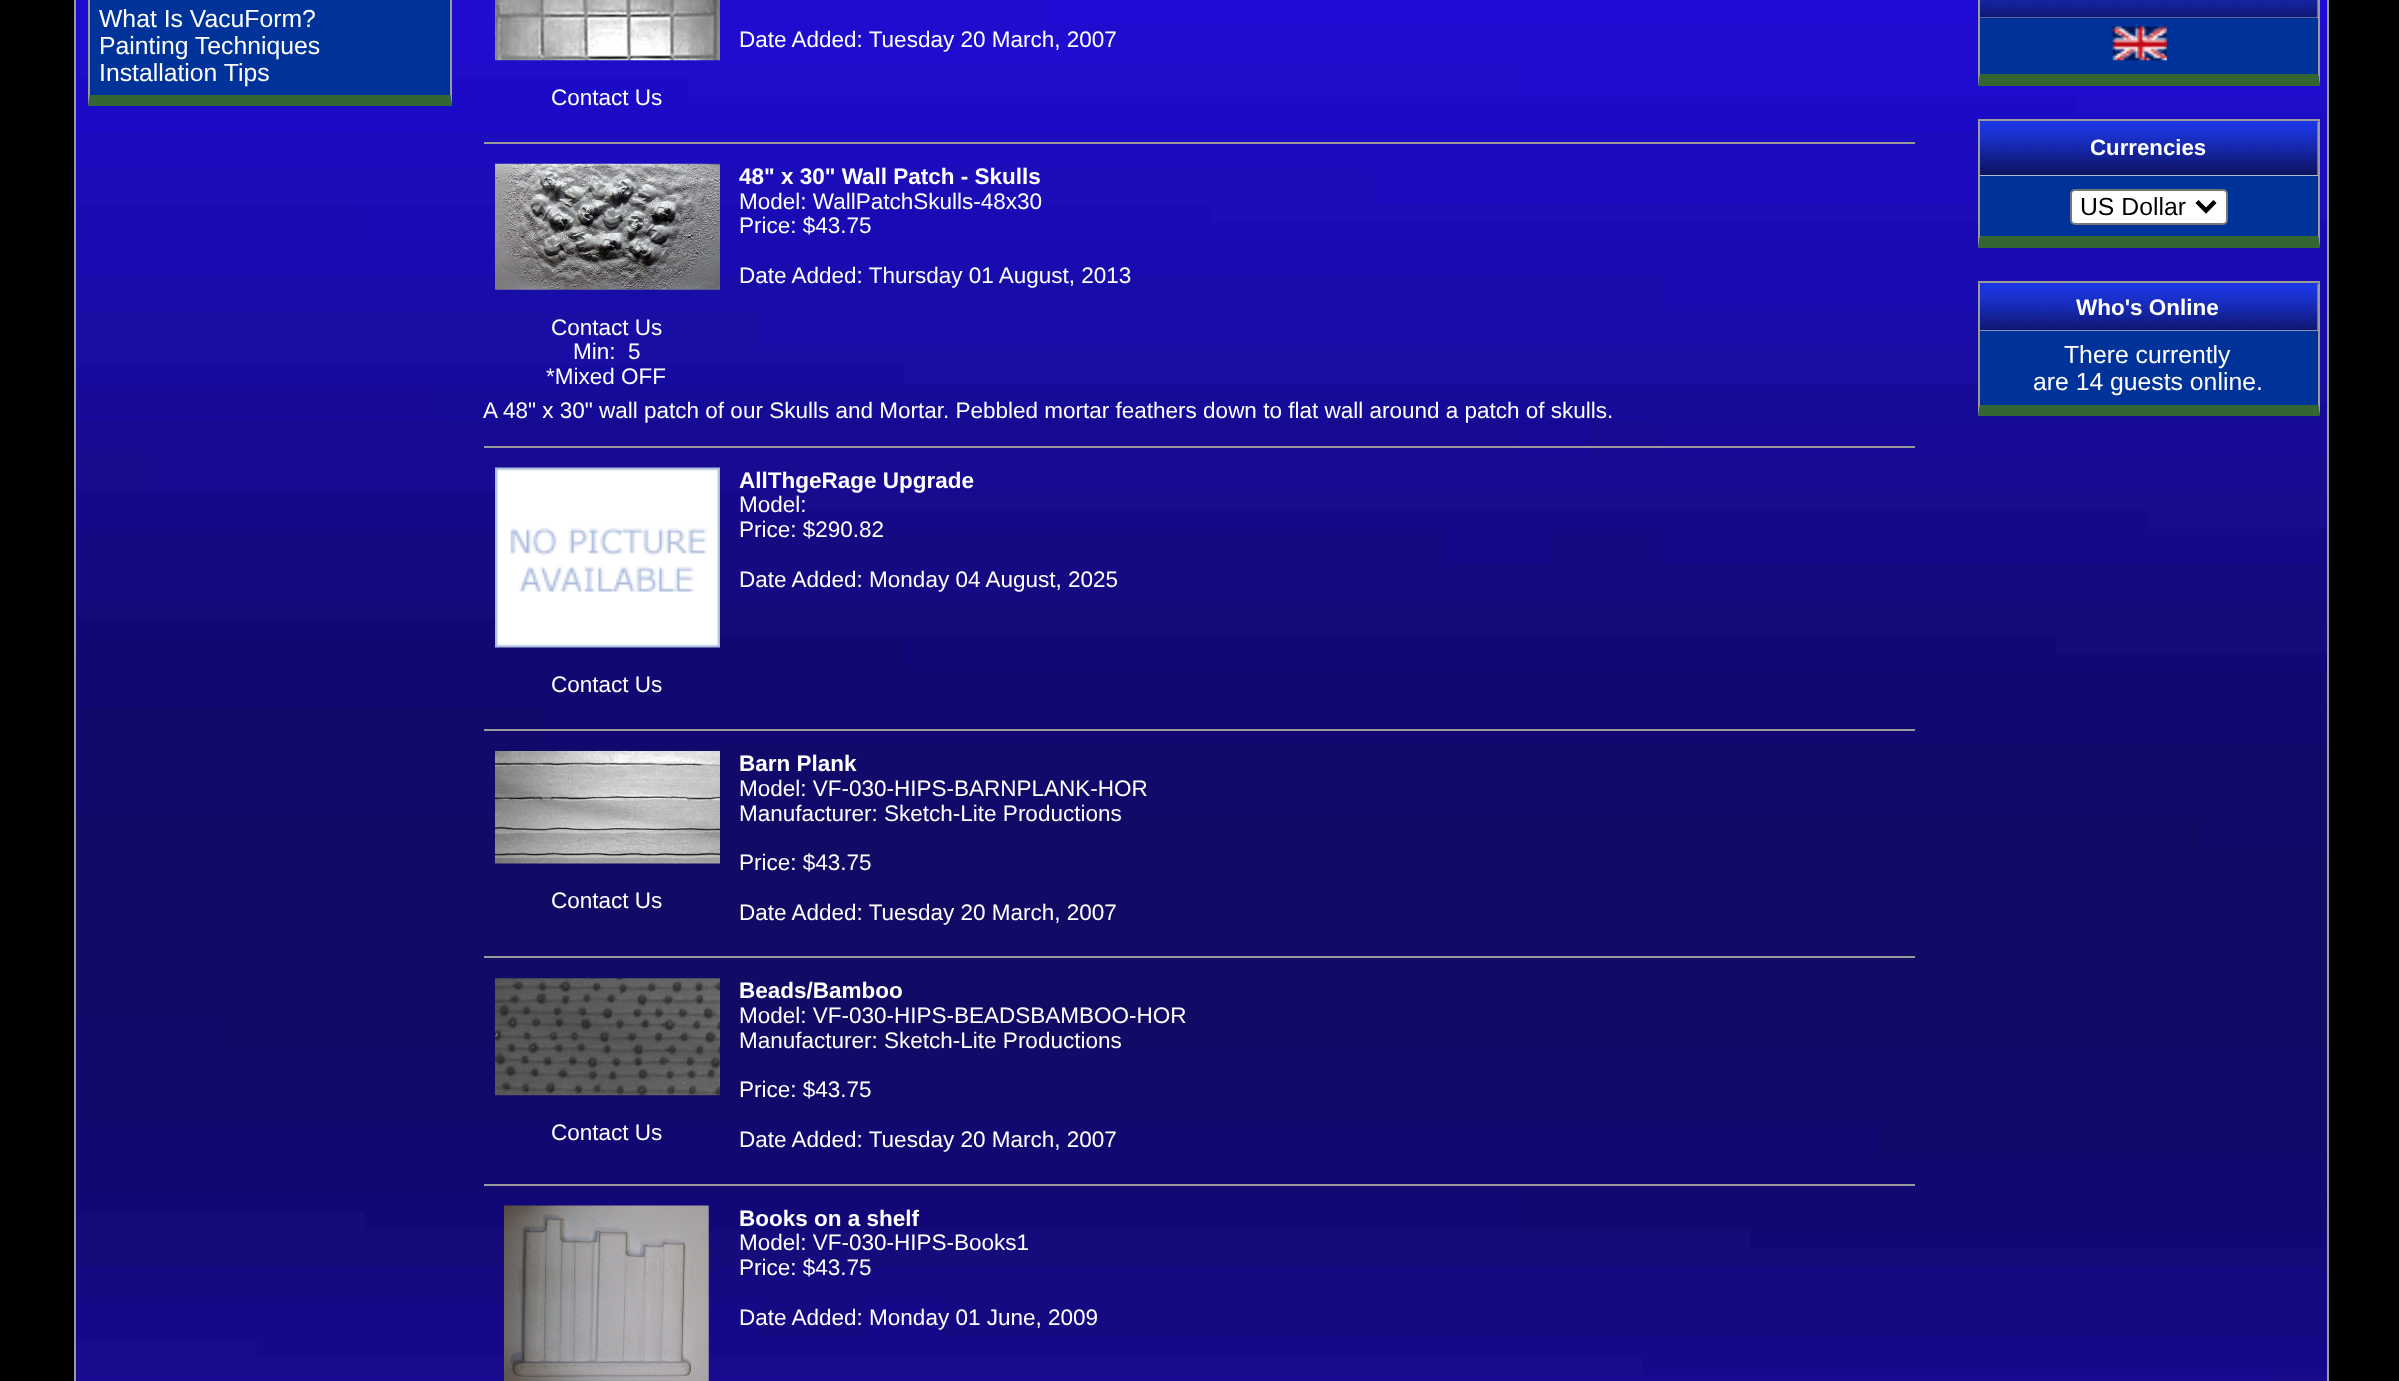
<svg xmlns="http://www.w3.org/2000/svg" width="2399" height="1381">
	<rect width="100%" height="100%" fill="#000000" />
	<image x="76" y="0" width="2251" height="1381" href="assets/img1.png" />
	<rect x="75" y="-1" width="2253" height="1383" fill="none" stroke="#9A9A9A" stroke-width="2" />
	<path d="M452-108V106L450 94V-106Z" fill="#9A9A9A" />
	<path d="M452 106H88L90 94H450Z" fill="#336633" />
	<path d="M88 106V-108L90-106V94Z" fill="#9A9A9A" />
	<rect x="90" y="0" width="360" height="95" fill="#003399" />
	<g font-family="Liberation Sans" font-size="24.75" fill="#FFFFFF">
		<text x="99" y="27">What Is VacuForm?</text>
		<text x="99" y="54">Painting Techniques</text>
		<text x="99" y="81">Installation Tips</text>
	</g>
	<text x="739" y="47" font-family="Liberation Sans" font-size="22.5" fill="#FFFFFF">Date Added: Tuesday 20 March, 2007</text>
	<image x="495" y="0" width="225" height="61" href="assets/img2.png" />
	<text x="551" y="105" font-family="Liberation Sans" font-size="22.5" fill="#FFFFFF">Contact Us</text>
	<rect x="484" y="142" width="1431" height="2" fill="#9A9A9A" />
	<text x="739" y="184" font-family="Liberation Sans" font-size="22.5" font-weight="700" fill="#FFFFFF">48" x 30" Wall Patch - Skulls</text>
	<g font-family="Liberation Sans" font-size="22.5" fill="#FFFFFF">
		<text x="739" y="209">Model: WallPatchSkulls-48x30</text>
		<text x="739" y="233">Price: $43.75</text>
		<text x="739" y="283">Date Added: Thursday 01 August, 2013</text>
	</g>
	<image x="495" y="163" width="225" height="127" href="assets/img3.png" />
	<g font-family="Liberation Sans" font-size="22.5" fill="#FFFFFF">
		<text x="551" y="335">Contact Us</text>
		<text x="573" y="359" xml:space="preserve">Min:  5</text>
		<text x="546" y="384">*Mixed OFF</text>
		<text x="483" y="418">A 48" x 30" wall patch of our Skulls and Mortar. Pebbled mortar feathers down to flat wall around a patch of skulls.</text>
	</g>
	<rect x="484" y="446" width="1431" height="2" fill="#9A9A9A" />
	<text x="739" y="488" font-family="Liberation Sans" font-size="22.5" font-weight="700" fill="#FFFFFF">AllThgeRage Upgrade</text>
	<g font-family="Liberation Sans" font-size="22.5" fill="#FFFFFF">
		<text x="739" y="512">Model:</text>
		<text x="739" y="537">Price: $290.82</text>
		<text x="739" y="587">Date Added: Monday 04 August, 2025</text>
	</g>
	<image x="495" y="467" width="225" height="181" href="assets/img4.png" />
	<text x="551" y="692" font-family="Liberation Sans" font-size="22.5" fill="#FFFFFF">Contact Us</text>
	<rect x="484" y="729" width="1431" height="2" fill="#9A9A9A" />
	<image x="495" y="751" width="225" height="113" href="assets/img5.png" />
	<text x="551" y="908" font-family="Liberation Sans" font-size="22.5" fill="#FFFFFF">Contact Us</text>
	<text x="739" y="771" font-family="Liberation Sans" font-size="22.5" font-weight="700" fill="#FFFFFF">Barn Plank</text>
	<g font-family="Liberation Sans" font-size="22.5" fill="#FFFFFF">
		<text x="739" y="796">Model: VF-030-HIPS-BARNPLANK-HOR</text>
		<text x="739" y="821">Manufacturer: Sketch-Lite Productions</text>
		<text x="739" y="870">Price: $43.75</text>
		<text x="739" y="920">Date Added: Tuesday 20 March, 2007</text>
	</g>
	<rect x="484" y="956" width="1431" height="2" fill="#9A9A9A" />
	<image x="495" y="978" width="225" height="118" href="assets/img6.png" />
	<text x="551" y="1140" font-family="Liberation Sans" font-size="22.5" fill="#FFFFFF">Contact Us</text>
	<text x="739" y="998" font-family="Liberation Sans" font-size="22.5" font-weight="700" fill="#FFFFFF">Beads/Bamboo</text>
	<g font-family="Liberation Sans" font-size="22.5" fill="#FFFFFF">
		<text x="739" y="1023">Model: VF-030-HIPS-BEADSBAMBOO-HOR</text>
		<text x="739" y="1048">Manufacturer: Sketch-Lite Productions</text>
		<text x="739" y="1097">Price: $43.75</text>
		<text x="739" y="1147">Date Added: Tuesday 20 March, 2007</text>
	</g>
	<rect x="484" y="1184" width="1431" height="2" fill="#9A9A9A" />
	<image x="504" y="1205" width="205" height="176" href="assets/img7.png" />
	<text x="739" y="1226" font-family="Liberation Sans" font-size="22.5" font-weight="700" fill="#FFFFFF">Books on a shelf</text>
	<g font-family="Liberation Sans" font-size="22.5" fill="#FFFFFF">
		<text x="739" y="1250">Model: VF-030-HIPS-Books1</text>
		<text x="739" y="1275">Price: $43.75</text>
		<text x="739" y="1325">Date Added: Monday 01 June, 2009</text>
	</g>
	<path d="M2320-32V86L2318 74V-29Z" fill="#9A9A9A" />
	<path d="M2320 86H1978L1980 74H2318Z" fill="#336633" />
	<path d="M1978 86V-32L1980-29V74Z" fill="#9A9A9A" />
	<rect x="1980" y="0" width="338" height="18" fill="#ABBBD3" />
	<image x="1980" y="0" width="338" height="18" href="assets/img8.png" />
	<rect x="1980" y="18" width="338" height="56" fill="#003399" />
	<image x="2112" y="26" width="55" height="35" href="assets/img9.png" />
	<rect x="1978" y="119" width="342" height="2" fill="#9A9A9A" />
	<path d="M2320 119V248L2318 236V122Z" fill="#9A9A9A" />
	<path d="M2320 248H1978L1980 236H2318Z" fill="#336633" />
	<path d="M1978 248V119L1980 122V236Z" fill="#9A9A9A" />
	<rect x="1980" y="122" width="338" height="54" fill="#ABBBD3" />
	<image x="1980" y="121" width="338" height="54" href="assets/img10.png" />
	<text x="2090" y="155" font-family="Liberation Sans" font-size="22.25" font-weight="700" fill="#FFFFFF">Currencies</text>
	<rect x="1980" y="176" width="338" height="60" fill="#003399" />
	<rect x="2071" y="190" width="156" height="34" rx="4" fill="#FFFFFF" stroke="#767676" stroke-width="2" />
	<path d="M2197 201.5L2206 210.5L2215 201.5" fill="none" stroke="#000000" stroke-width="4.5" />
	<text x="2080" y="215" font-family="Liberation Sans" font-size="24.75" fill="#000000">US Dollar</text>
	<rect x="1978" y="281" width="342" height="2" fill="#9A9A9A" />
	<path d="M2320 281V416L2318 405V284Z" fill="#9A9A9A" />
	<path d="M2320 416H1978L1980 405H2318Z" fill="#336633" />
	<path d="M1978 416V281L1980 284V405Z" fill="#9A9A9A" />
	<rect x="1980" y="284" width="338" height="47" fill="#ABBBD3" />
	<image x="1980" y="283" width="338" height="48" href="assets/img11.png" />
	<text x="2076" y="315" font-family="Liberation Sans" font-size="22.5" font-weight="700" fill="#FFFFFF">Who's Online</text>
	<rect x="1980" y="331" width="338" height="74" fill="#003399" />
	<g font-family="Liberation Sans" font-size="24.75" fill="#FFFFFF">
		<text x="2064" y="363">There currently</text>
		<text x="2033" y="390">are 14 guests online.</text>
	</g>
</svg>
